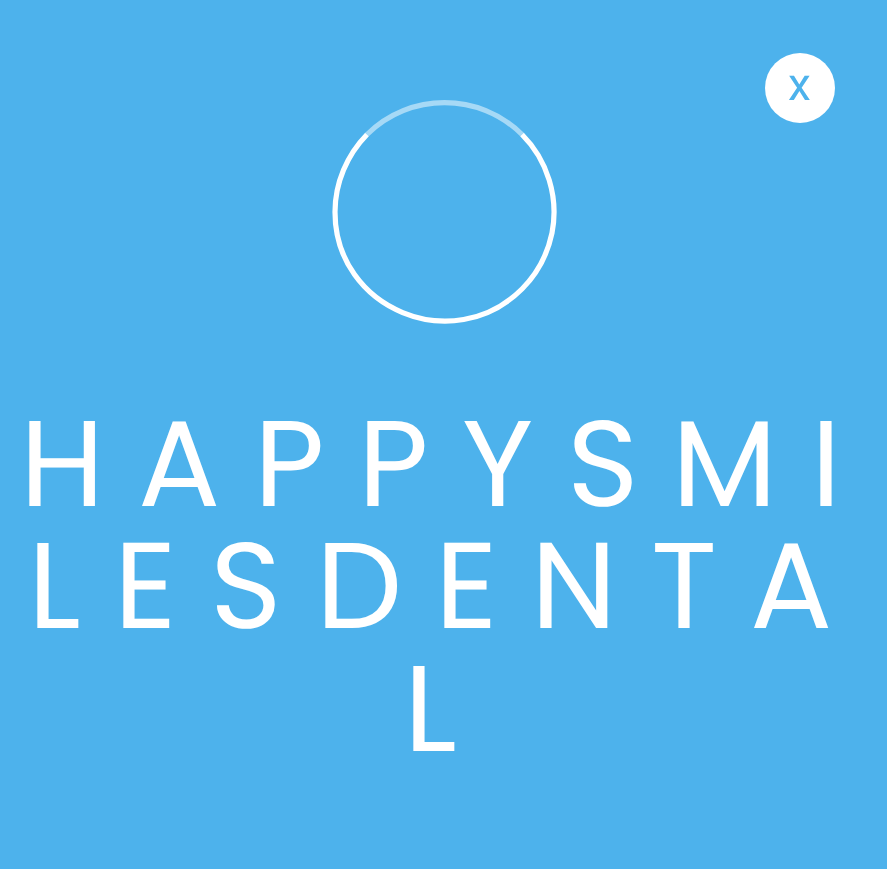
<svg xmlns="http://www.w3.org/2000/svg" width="887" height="869">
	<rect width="100%" height="100%" fill="#4DB2EC" />
	<circle cx="800" cy="88" r="35" fill="#FFFFFF" />
	<text x="788" y="100" font-family="Roboto" font-size="46" fill="#4DB2EC">x</text>
	<path d="M367 134.5C409.5 92 479.5 92 522 134.5" fill="none" stroke="#A6D9F6" stroke-width="5.2" />
	<path d="M522 134.5C547.5 160 559 197.5 552 233C547.5 254.5 537 274 522 289C453 357.5 335 309 335 212C335 183 347 155 367 134.5" fill="none" stroke="#FFFFFF" stroke-width="5.2" />
	<g font-family="Poppins" font-size="122" letter-spacing="26" fill="#FFFFFF">
		<text x="20" y="506">H</text>
		<text x="138" y="506">A</text>
		<text x="254" y="506">P</text>
		<text x="358" y="506">P</text>
		<text x="462" y="506">Y</text>
		<text x="567" y="506">S</text>
		<text x="672" y="506">M</text>
		<text x="811" y="506">I</text>
		<text x="28" y="628">L</text>
		<text x="114" y="628">E</text>
		<text x="210" y="628">S</text>
		<text x="316" y="628">D</text>
		<text x="435" y="628">E</text>
		<text x="531" y="628">N</text>
		<text x="651" y="628">T</text>
		<text x="750" y="628">A</text>
		<text x="404" y="751">L</text>
	</g>
</svg>
